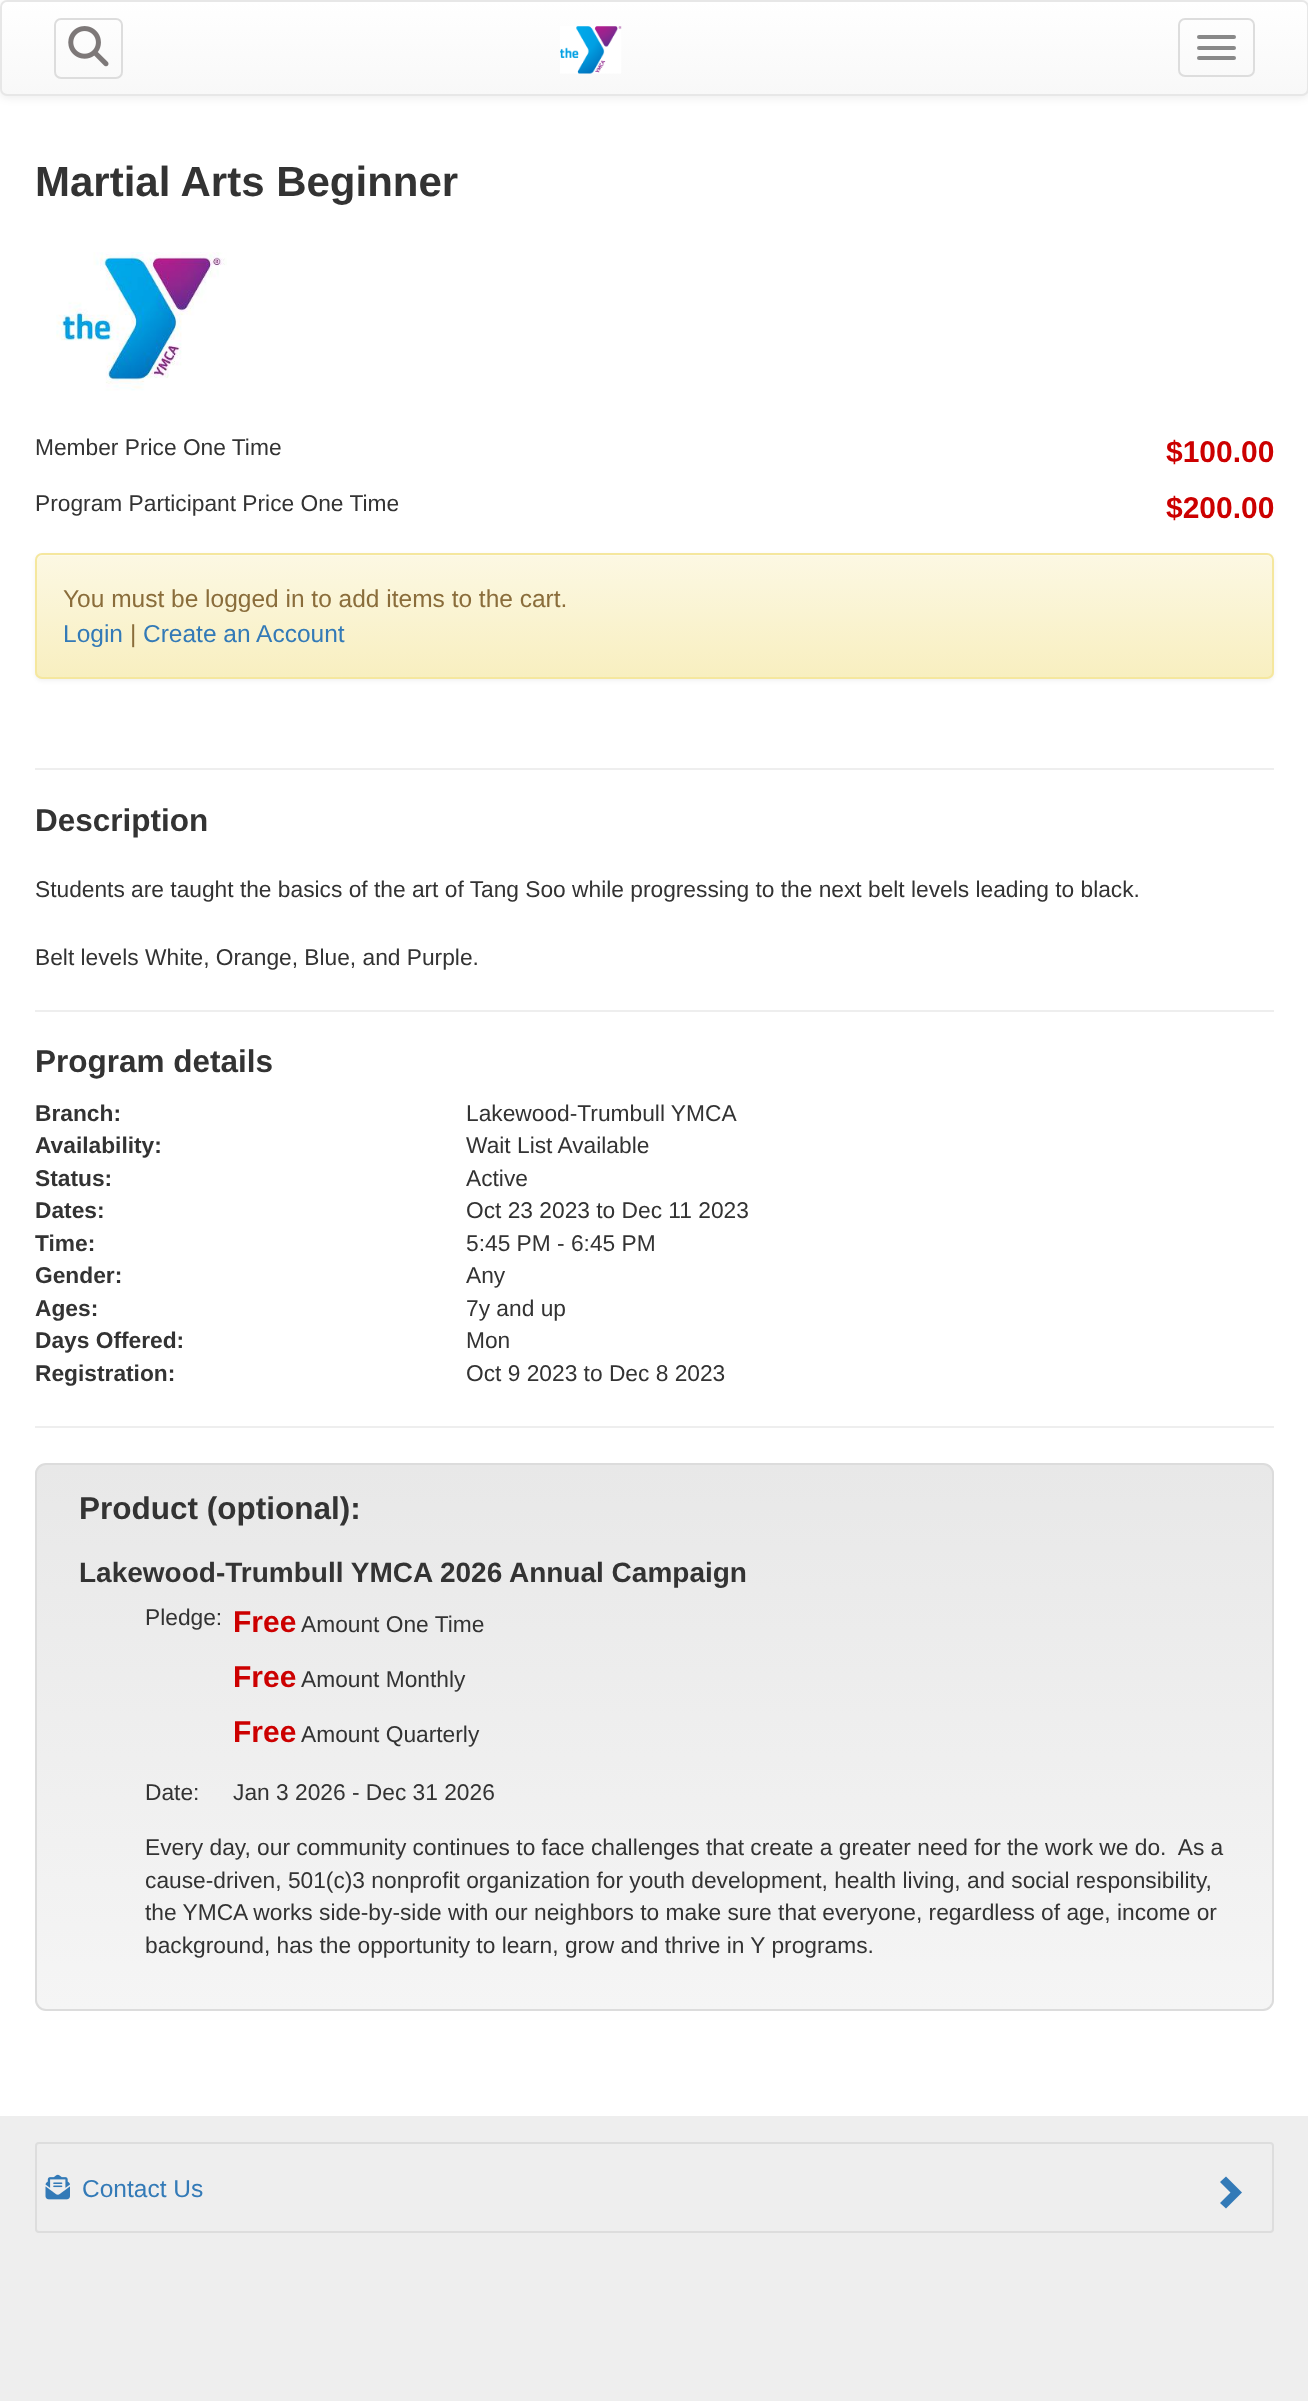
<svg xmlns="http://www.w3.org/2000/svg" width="1308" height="2401">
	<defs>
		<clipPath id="clip1"><rect x="0" y="0" width="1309" height="96" rx="7" /></clipPath>
		<linearGradient id="g1" gradientUnits="userSpaceOnUse" x1="655" y1="1.7" x2="655" y2="95"><stop offset="0" stop-color="#FFFFFF" /><stop offset="1" stop-color="#F8F8F8" /></linearGradient>
		<clipPath id="clip2"><rect x="35" y="553" width="1239" height="126" rx="7" /></clipPath>
		<linearGradient id="g2" gradientUnits="userSpaceOnUse" x1="655" y1="555" x2="655" y2="677"><stop offset="0" stop-color="#FCF8E3" /><stop offset="1" stop-color="#F8EFC0" /></linearGradient>
		<clipPath id="clip3"><rect x="35" y="1463" width="1239" height="548" rx="11" /></clipPath>
		<linearGradient id="g3" gradientUnits="userSpaceOnUse" x1="655" y1="1465" x2="655" y2="2009"><stop offset="0" stop-color="#E8E8E8" /><stop offset="1" stop-color="#F5F5F5" /></linearGradient>
	</defs>
	<rect width="100%" height="100%" fill="#FFFFFF" />
	<rect x="0" y="2" width="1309" height="96" rx="7" fill="#000000" fill-opacity="0.07" filter="blur(4.5px)" />
	<g clip-path="url(#clip1)">
		<rect x="0" y="2" width="1308" height="93" fill="url(#g1)" />
	</g>
	<rect x="1" y="1" width="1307" height="94" rx="6" fill="none" stroke="#E7E7E7" stroke-width="2" />
	<rect x="55" y="19" width="67" height="59" rx="6" fill="none" stroke="#DDDDDD" stroke-width="2" />
	<image x="68" y="26" width="41" height="41" href="assets/img1.png" />
	<image x="560" y="26" width="62" height="48" href="assets/img2.png" />
	<rect x="1179" y="19" width="75" height="57" rx="6" fill="none" stroke="#DDDDDD" stroke-width="2" />
	<rect x="1197" y="35" width="39" height="4" rx="2" fill="#888888" />
	<rect x="1197" y="46" width="39" height="4" rx="2" fill="#888888" />
	<rect x="1197" y="56" width="39" height="4" rx="2" fill="#888888" />
	<text x="35" y="196" font-family="Liberation Sans" font-size="42" font-weight="700" fill="#333333">Martial Arts Beginner</text>
	<image x="56" y="252" width="171" height="139" href="assets/img3.png" />
	<text x="35" y="455" font-family="Liberation Sans" font-size="22.75" fill="#333333">Member Price One Time</text>
	<text x="1166" y="462" font-family="Liberation Sans" font-size="30" font-weight="700" fill="#CC0000">$100.00</text>
	<text x="35" y="511" font-family="Liberation Sans" font-size="22.75" fill="#333333">Program Participant Price One Time</text>
	<text x="1166" y="518" font-family="Liberation Sans" font-size="30" font-weight="700" fill="#CC0000">$200.00</text>
	<rect x="35" y="555" width="1239" height="126" rx="7" fill="#000000" fill-opacity="0.05" filter="blur(2px)" />
	<g clip-path="url(#clip2)">
		<rect x="35" y="555" width="1239" height="122" fill="url(#g2)" />
	</g>
	<path d="M42 556H1267C1270 556 1272 559 1272 562V560C1272 557 1270 555 1267 555H42C39 555 37 557 37 560V562C37 559 39 556 42 556Z" fill="#FDFAEA" />
	<rect x="36" y="554" width="1237" height="124" rx="6" fill="none" stroke="#F5E79E" stroke-width="2" />
	<text x="63" y="607" font-family="Liberation Sans" font-size="24.5" fill="#8A6D3B">You must be logged in to add items to the cart.</text>
	<text x="63" y="642" font-family="Liberation Sans" font-size="24.5" fill="#337AB7">Login</text>
	<text x="130" y="642" font-family="Liberation Sans" font-size="24.5" fill="#8A6D3B">|</text>
	<text x="143" y="642" font-family="Liberation Sans" font-size="24.5" fill="#337AB7">Create an Account</text>
	<rect x="35" y="768" width="1239" height="2" fill="#EEEEEE" />
	<text x="35" y="831" font-family="Liberation Sans" font-size="31.5" font-weight="700" fill="#333333">Description</text>
	<g font-family="Liberation Sans" font-size="22.75" fill="#333333">
		<text x="35" y="897">Students are taught the basics of the art of Tang Soo while progressing to the next belt levels leading to black.</text>
		<text x="35" y="965">Belt levels White, Orange, Blue, and Purple.</text>
	</g>
	<rect x="35" y="1010" width="1239" height="2" fill="#EEEEEE" />
	<text x="35" y="1072" font-family="Liberation Sans" font-size="31.5" font-weight="700" fill="#333333">Program details</text>
	<text x="35" y="1121" font-family="Liberation Sans" font-size="22.75" font-weight="700" fill="#333333">Branch:</text>
	<text x="466" y="1121" font-family="Liberation Sans" font-size="22.75" fill="#333333">Lakewood-Trumbull YMCA</text>
	<text x="35" y="1153" font-family="Liberation Sans" font-size="22.75" font-weight="700" fill="#333333">Availability:</text>
	<text x="466" y="1153" font-family="Liberation Sans" font-size="22.75" fill="#333333">Wait List Available</text>
	<text x="35" y="1186" font-family="Liberation Sans" font-size="22.75" font-weight="700" fill="#333333">Status:</text>
	<text x="466" y="1186" font-family="Liberation Sans" font-size="22.75" fill="#333333">Active</text>
	<text x="35" y="1218" font-family="Liberation Sans" font-size="22.75" font-weight="700" fill="#333333">Dates:</text>
	<text x="466" y="1218" font-family="Liberation Sans" font-size="22.75" fill="#333333">Oct 23 2023 to Dec 11 2023</text>
	<text x="35" y="1251" font-family="Liberation Sans" font-size="22.75" font-weight="700" fill="#333333">Time:</text>
	<text x="466" y="1251" font-family="Liberation Sans" font-size="22.75" fill="#333333">5:45 PM - 6:45 PM</text>
	<text x="35" y="1283" font-family="Liberation Sans" font-size="22.75" font-weight="700" fill="#333333">Gender:</text>
	<text x="466" y="1283" font-family="Liberation Sans" font-size="22.75" fill="#333333">Any</text>
	<text x="35" y="1316" font-family="Liberation Sans" font-size="22.75" font-weight="700" fill="#333333">Ages:</text>
	<text x="466" y="1316" font-family="Liberation Sans" font-size="22.75" fill="#333333">7y and up</text>
	<text x="35" y="1348" font-family="Liberation Sans" font-size="22.75" font-weight="700" fill="#333333">Days Offered:</text>
	<text x="466" y="1348" font-family="Liberation Sans" font-size="22.75" fill="#333333">Mon</text>
	<text x="35" y="1381" font-family="Liberation Sans" font-size="22.75" font-weight="700" fill="#333333">Registration:</text>
	<text x="466" y="1381" font-family="Liberation Sans" font-size="22.75" fill="#333333">Oct 9 2023 to Dec 8 2023</text>
	<rect x="35" y="1426" width="1239" height="2" fill="#EEEEEE" />
	<g clip-path="url(#clip3)">
		<rect x="35" y="1465" width="1239" height="544" fill="url(#g3)" />
	</g>
	<rect x="36" y="1464" width="1237" height="546" rx="10" fill="none" stroke="#DCDCDC" stroke-width="2" />
	<text x="79" y="1519" font-family="Liberation Sans" font-size="31.5" font-weight="700" fill="#333333">Product (optional):</text>
	<text x="79" y="1582" font-family="Liberation Sans" font-size="28" font-weight="700" fill="#333333">Lakewood-Trumbull YMCA 2026 Annual Campaign</text>
	<text x="145" y="1625" font-family="Liberation Sans" font-size="22.75" fill="#333333">Pledge:</text>
	<text x="233" y="1632" font-family="Liberation Sans" font-size="30" font-weight="700" fill="#CC0000">Free</text>
	<text x="301" y="1632" font-family="Liberation Sans" font-size="22.75" fill="#333333">Amount One Time</text>
	<text x="233" y="1687" font-family="Liberation Sans" font-size="30" font-weight="700" fill="#CC0000">Free</text>
	<text x="301" y="1687" font-family="Liberation Sans" font-size="22.75" fill="#333333">Amount Monthly</text>
	<text x="233" y="1742" font-family="Liberation Sans" font-size="30" font-weight="700" fill="#CC0000">Free</text>
	<g font-family="Liberation Sans" font-size="22.75" fill="#333333">
		<text x="301" y="1742">Amount Quarterly</text>
		<text x="145" y="1800">Date:</text>
		<text x="233" y="1800">Jan 3 2026 - Dec 31 2026</text>
		<text x="145" y="1855" xml:space="preserve">Every day, our community continues to face challenges that create a greater need for the work we do.  As a</text>
		<text x="145" y="1888">cause-driven, 501(c)3 nonprofit organization for youth development, health living, and social responsibility,</text>
		<text x="145" y="1920">the YMCA works side-by-side with our neighbors to make sure that everyone, regardless of age, income or</text>
		<text x="145" y="1953">background, has the opportunity to learn, grow and thrive in Y programs.</text>
	</g>
	<rect x="0" y="2116" width="1308" height="285" fill="#EEEEEE" />
	<rect x="36" y="2143" width="1237" height="89" rx="3" fill="none" stroke="#DDDDDD" stroke-width="2" />
	<image x="45" y="2174" width="25" height="26" href="assets/img4.png" />
	<text x="82" y="2197" font-family="Liberation Sans" font-size="24.5" fill="#337AB7">Contact Us</text>
	<path d="M1242 2192.5L1226 2208.5L1220 2203L1230.5 2192.5L1220 2182L1226 2176.5Z" fill="#337AB7" />
</svg>
